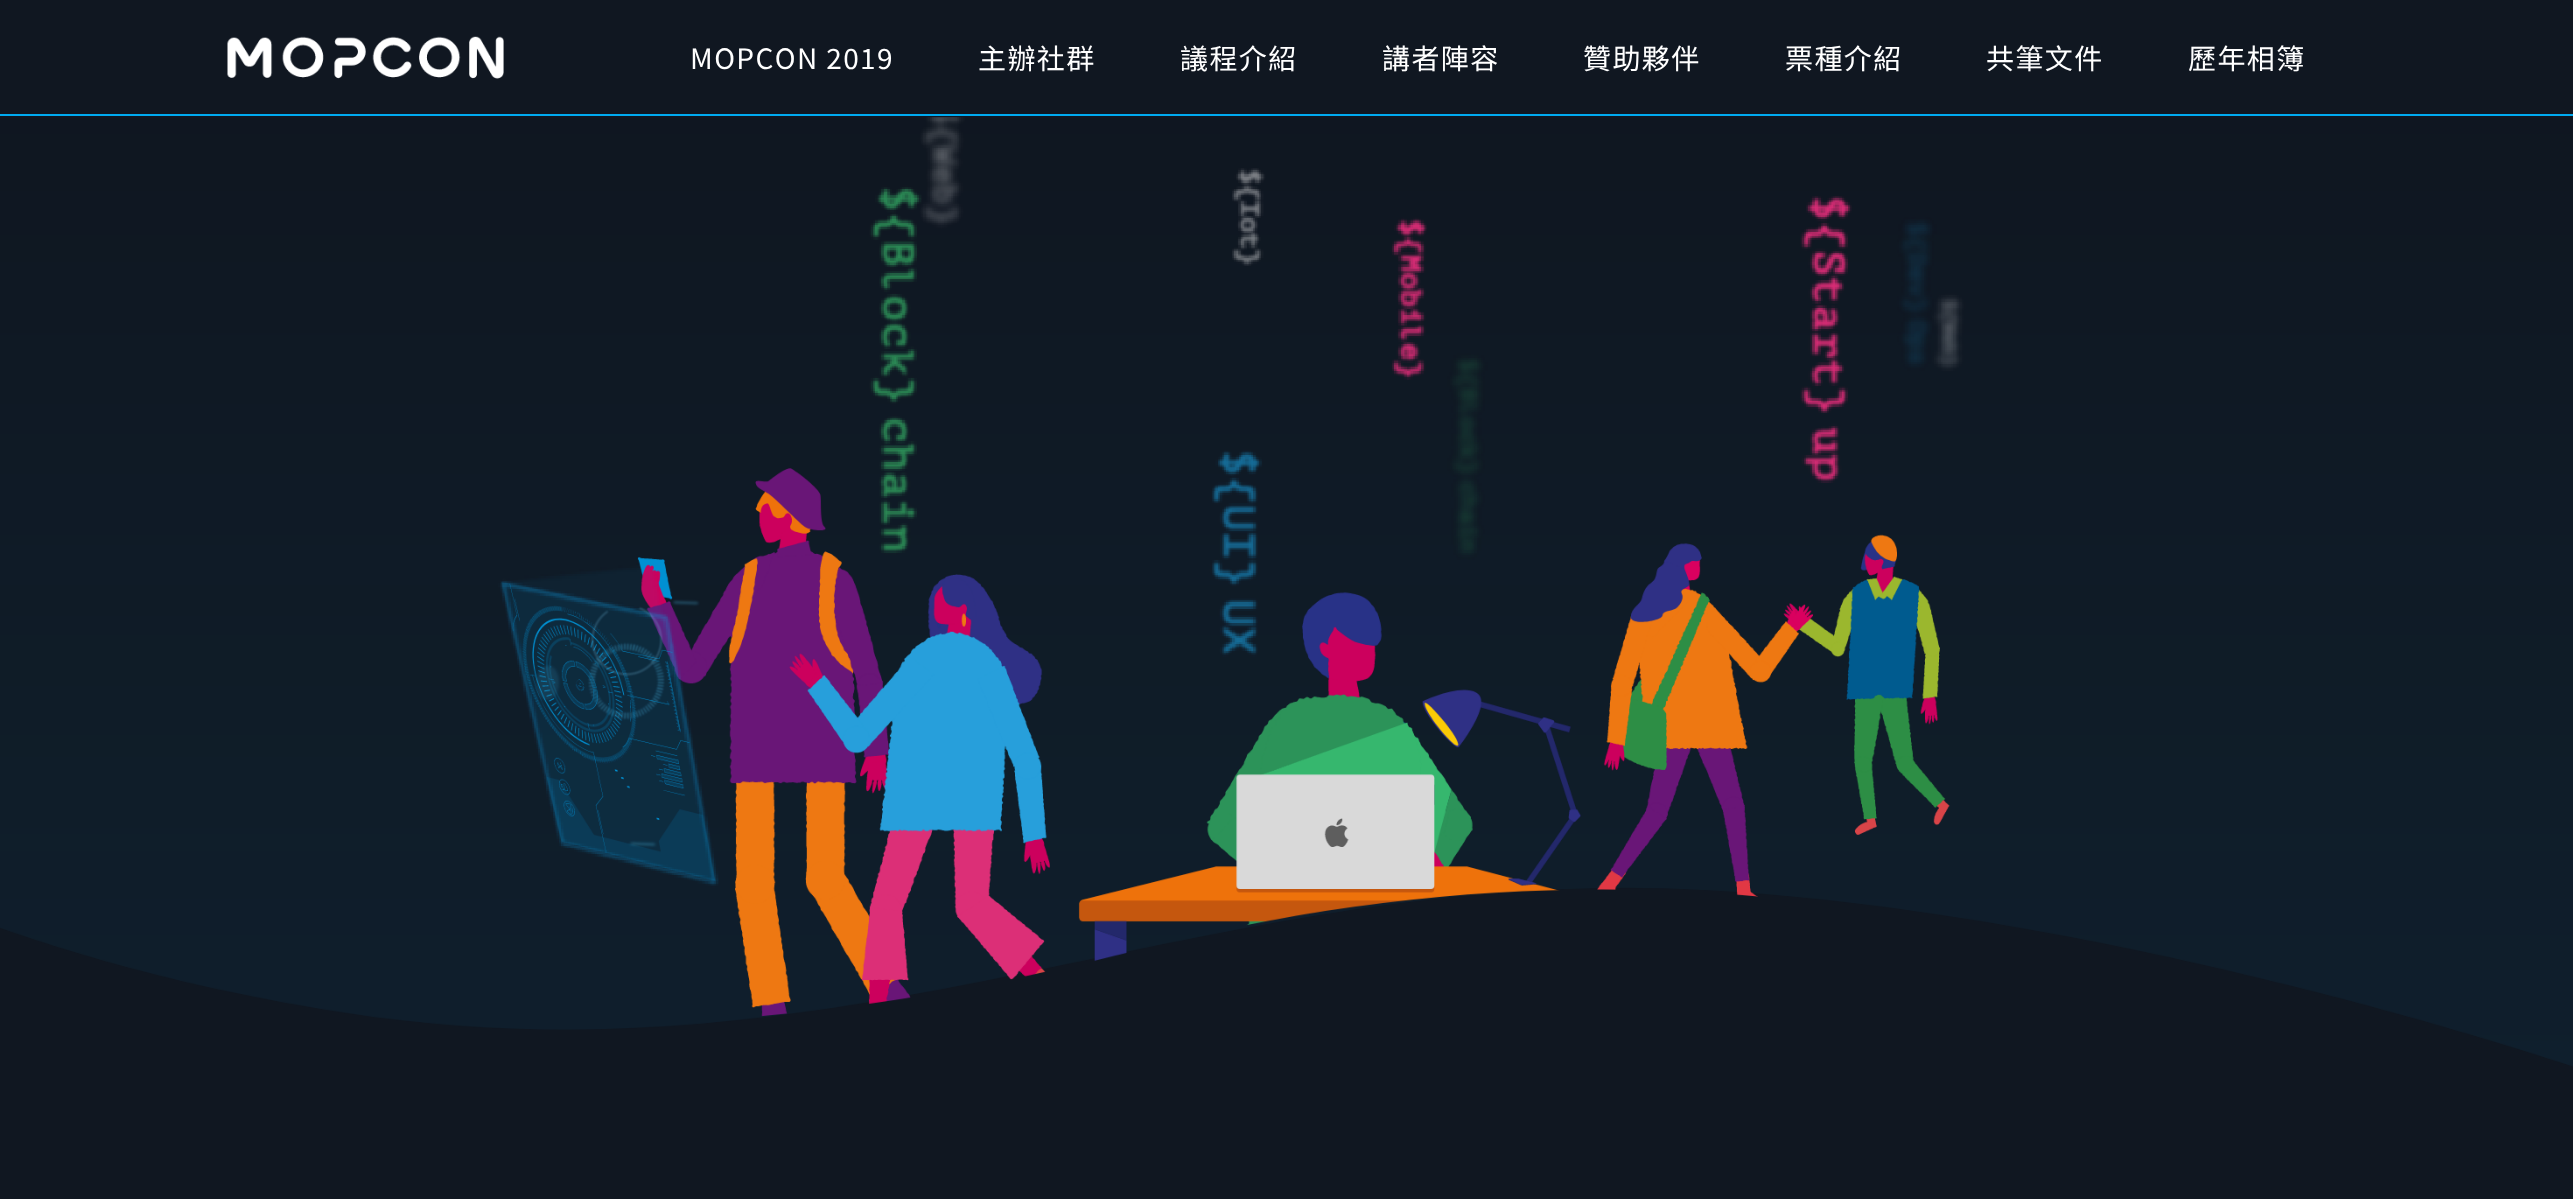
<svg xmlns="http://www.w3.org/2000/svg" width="2573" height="1199">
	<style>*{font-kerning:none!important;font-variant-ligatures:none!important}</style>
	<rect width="100%" height="100%" fill="#101721" />
	<rect x="0" y="114" width="2573" height="2" fill="#00AAF0" />
	<image x="227" y="36" width="277" height="43" href="assets/img1.png" />
	<g font-family="Noto Sans TC" font-size="28" letter-spacing="1.4" fill="#FFFFFF">
		<text x="690" y="69">MOPCON 2019</text>
		<text x="978" y="69">主辦社群</text>
		<text x="1180" y="69">議程介紹</text>
		<text x="1382" y="69">講者陣容</text>
		<text x="1583" y="69">贊助夥伴</text>
		<text x="1785" y="69">票種介紹</text>
		<text x="1986" y="69">共筆文件</text>
		<text x="2188" y="69">歷年相簿</text>
	</g>
	<image x="0" y="117" width="2573" height="950" href="assets/img2.png" />
</svg>
